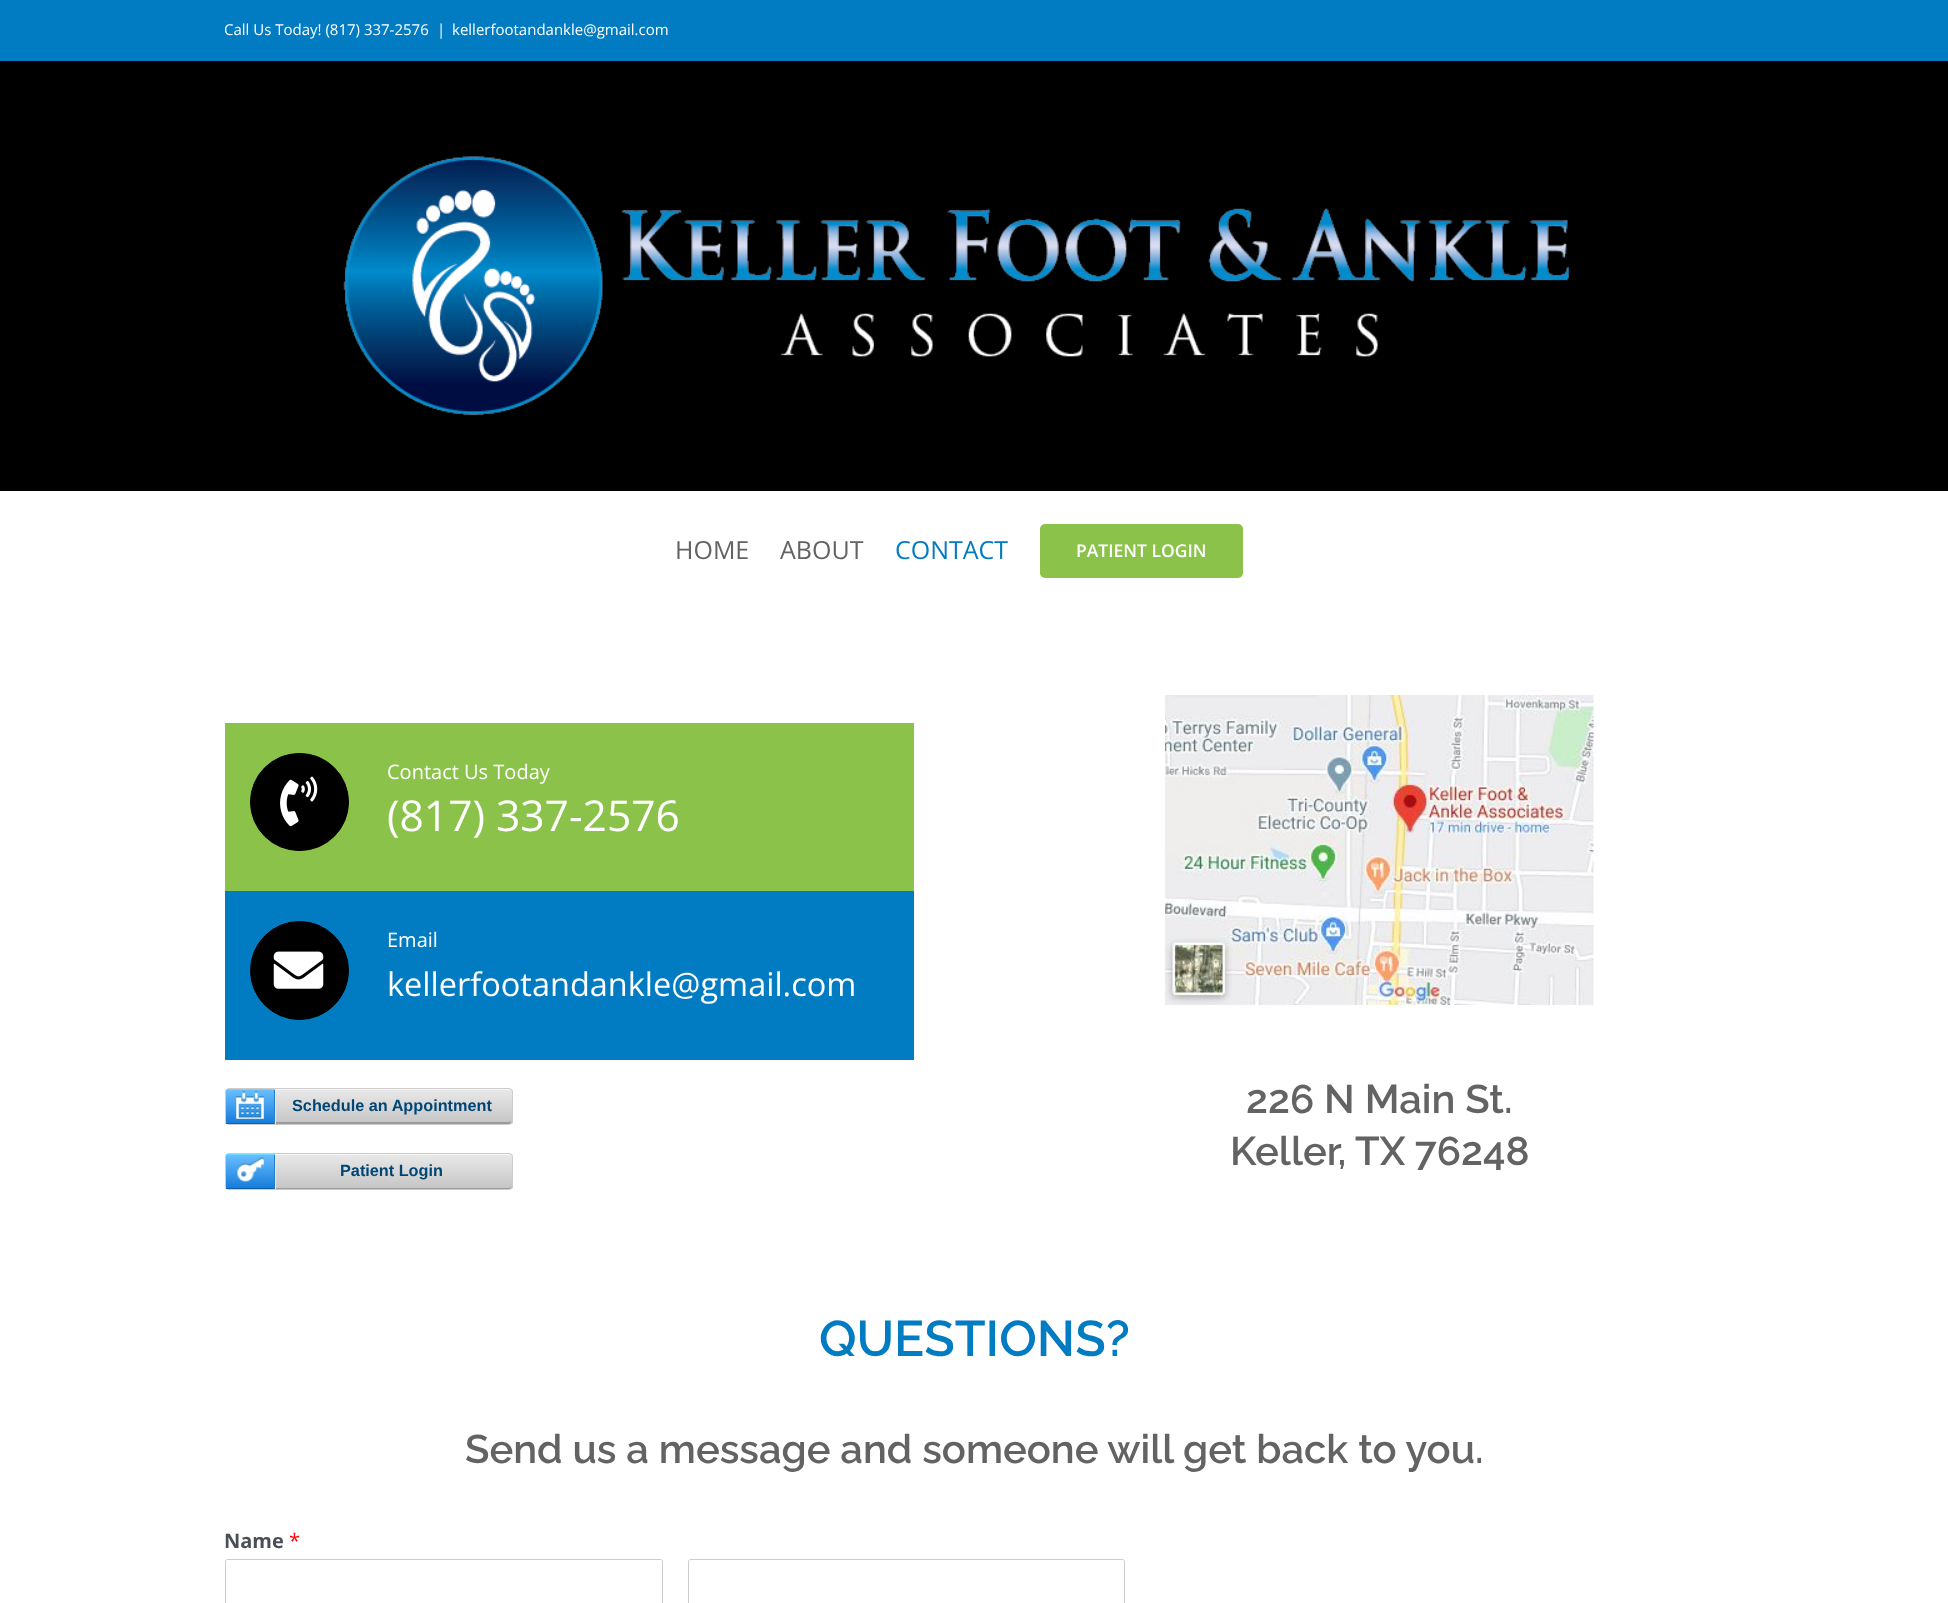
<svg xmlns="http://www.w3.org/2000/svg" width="1948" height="1603">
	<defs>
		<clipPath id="clip1"><rect x="225" y="1088" width="288" height="37" rx="4" /></clipPath>
		<linearGradient id="g1" gradientUnits="userSpaceOnUse" x1="369" y1="1089" x2="369" y2="1124"><stop offset="0" stop-color="#E9E9E9" /><stop offset="1" stop-color="#C5C5C5" /></linearGradient>
		<linearGradient id="g2" gradientUnits="userSpaceOnUse" x1="251" y1="1089" x2="251" y2="1124"><stop offset="0" stop-color="#6BC0FE" /><stop offset="1" stop-color="#147BDA" /></linearGradient>
		<clipPath id="clip2"><rect x="225" y="1153" width="288" height="37" rx="4" /></clipPath>
		<linearGradient id="g3" gradientUnits="userSpaceOnUse" x1="369" y1="1154" x2="369" y2="1189"><stop offset="0" stop-color="#E9E9E9" /><stop offset="1" stop-color="#C5C5C5" /></linearGradient>
		<linearGradient id="g4" gradientUnits="userSpaceOnUse" x1="251" y1="1154" x2="251" y2="1189"><stop offset="0" stop-color="#6BC0FE" /><stop offset="1" stop-color="#147BDA" /></linearGradient>
	</defs>
	<rect width="100%" height="100%" fill="#FFFFFF" />
	<rect x="0" y="0" width="1948" height="61" fill="#017BC1" />
	<g font-family="Open Sans" font-size="15" fill="#FFFFFF">
		<text x="224" y="35">Call Us Today! (817) 337-2576</text>
		<text x="437" y="35">|</text>
		<text x="452" y="35">kellerfootandankle@gmail.com</text>
	</g>
	<rect x="0" y="61" width="1948" height="430" fill="#000000" />
	<image x="343" y="156" width="1226" height="260" href="assets/img1.png" />
	<g font-family="Open Sans" font-size="25" fill="#636363">
		<text x="675" y="559">HOME</text>
		<text x="780" y="559">ABOUT</text>
	</g>
	<text x="895" y="559" font-family="Open Sans" font-size="25" fill="#017BC1">CONTACT</text>
	<rect x="1040" y="524" width="203" height="54" rx="5" fill="#8BC34A" />
	<text x="1076" y="557" font-family="Open Sans" font-size="17.5" font-weight="600" fill="#FFFFFF">PATIENT LOGIN</text>
	<rect x="225" y="723" width="689" height="168" fill="#8BC34A" />
	<rect x="250.5" y="753.5" width="98" height="97" rx="48.5" fill="#000000" stroke="#000000" />
	<image x="280" y="776" width="38" height="51" href="assets/img2.png" />
	<text x="387" y="779" font-family="Open Sans" font-size="20" fill="#FFFFFF">Contact Us Today</text>
	<text x="387" y="831" font-family="Open Sans" font-size="42.5" fill="#FFFFFF">(817) 337-2576</text>
	<rect x="225" y="891" width="689" height="169" fill="#017BC1" />
	<circle cx="299.5" cy="970.5" r="49" fill="#000000" stroke="#000000" />
	<image x="273" y="951" width="51" height="38" href="assets/img3.png" />
	<text x="387" y="947" font-family="Open Sans" font-size="20" fill="#FFFFFF">Email</text>
	<text x="387" y="996" font-family="Open Sans" font-size="32.5" fill="#FFFFFF">kellerfootandankle@gmail.com</text>
	<g clip-path="url(#clip1)">
		<rect x="225" y="1089" width="288" height="35" fill="url(#g1)" />
	</g>
	<path d="M226 1120C226 1122 226 1124 228 1124H508C511 1124 511 1122 511 1120C511 1121 510 1122 509 1122H229C227 1122 226 1121 226 1120Z" fill="#9A9A9A" />
	<path d="M229 1090H509C510 1090 511 1091 511 1092C511 1090 510 1089 508 1089H228C227 1089 226 1090 226 1092C226 1091 227 1090 229 1090Z" fill="#F6F6F6" />
	<rect x="225.5" y="1088.5" width="287" height="36" rx="3.5" fill="none" stroke="#CCCCCC" />
	<path d="M228.5 1089H276V1124H228.5C227 1124 226 1123 226 1121.5V1091.5C226 1090 227 1089 228.5 1089Z" fill="url(#g2)" />
	<rect x="226" y="1123" width="49" height="1" fill="#115FA6" />
	<rect x="274" y="1089" width="1" height="35" fill="#257CC5" />
	<rect x="226" y="1089" width="49" height="1" fill="#6CD7FF" />
	<rect x="275" y="1089" width="1" height="35" fill="#EBEBEB" />
	<image x="236" y="1091" width="28" height="28" href="assets/img4.png" />
	<text x="292" y="1111" font-family="Liberation Sans" font-size="16.25" font-weight="700" fill="#004675">Schedule an Appointment</text>
	<g clip-path="url(#clip2)">
		<rect x="225" y="1154" width="288" height="35" fill="url(#g3)" />
	</g>
	<path d="M226 1185C226 1187 226 1189 228 1189H508C511 1189 511 1187 511 1185C511 1186 510 1188 509 1188H229C227 1188 226 1186 226 1185Z" fill="#9A9A9A" />
	<path d="M229 1155H509L511 1156V1158C511 1156 511 1154 508 1154H228C226 1154 226 1156 226 1158C226 1156 227 1155 229 1155Z" fill="#F6F6F6" />
	<rect x="225.5" y="1153.5" width="287" height="36" rx="3.5" fill="none" stroke="#CCCCCC" />
	<path d="M228.5 1154H276V1189H228.5C227 1189 226 1188 226 1186.5V1156.5C226 1155 227 1154 228.5 1154Z" fill="url(#g4)" />
	<rect x="226" y="1188" width="49" height="1" fill="#115FA6" />
	<rect x="274" y="1154" width="1" height="35" fill="#257CC5" />
	<rect x="226" y="1154" width="49" height="1" fill="#6CD7FF" />
	<rect x="275" y="1154" width="1" height="35" fill="#EBEBEB" />
	<image x="237" y="1157" width="27" height="25" href="assets/img5.png" />
	<text x="340" y="1176" font-family="Liberation Sans" font-size="16.25" font-weight="700" fill="#004675">Patient Login</text>
	<image x="1165" y="695" width="429" height="310" href="assets/img6.png" />
	<g font-family="Raleway" font-size="40" font-weight="600" fill="#636363">
		<text x="1246" y="1113">226 N Main St.</text>
		<text x="1230" y="1165">Keller, TX 76248</text>
	</g>
	<text x="819" y="1356" font-family="Raleway" font-size="50" font-weight="600" fill="#017BC1">QUESTIONS?</text>
	<text x="465" y="1463" font-family="Raleway" font-size="40" font-weight="600" fill="#636363">Send us a message and someone will get back to you.</text>
	<text x="224" y="1548" font-family="Open Sans" font-size="20" font-weight="700" fill="#4A4E57">Name</text>
	<text x="289" y="1548" font-family="Open Sans" font-size="20" fill="#FF0000">*</text>
	<rect x="225.5" y="1559.5" width="437" height="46" rx="2" fill="none" stroke="#CCCCCC" />
	<rect x="688.5" y="1559.5" width="436" height="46" rx="2" fill="none" stroke="#CCCCCC" />
</svg>
